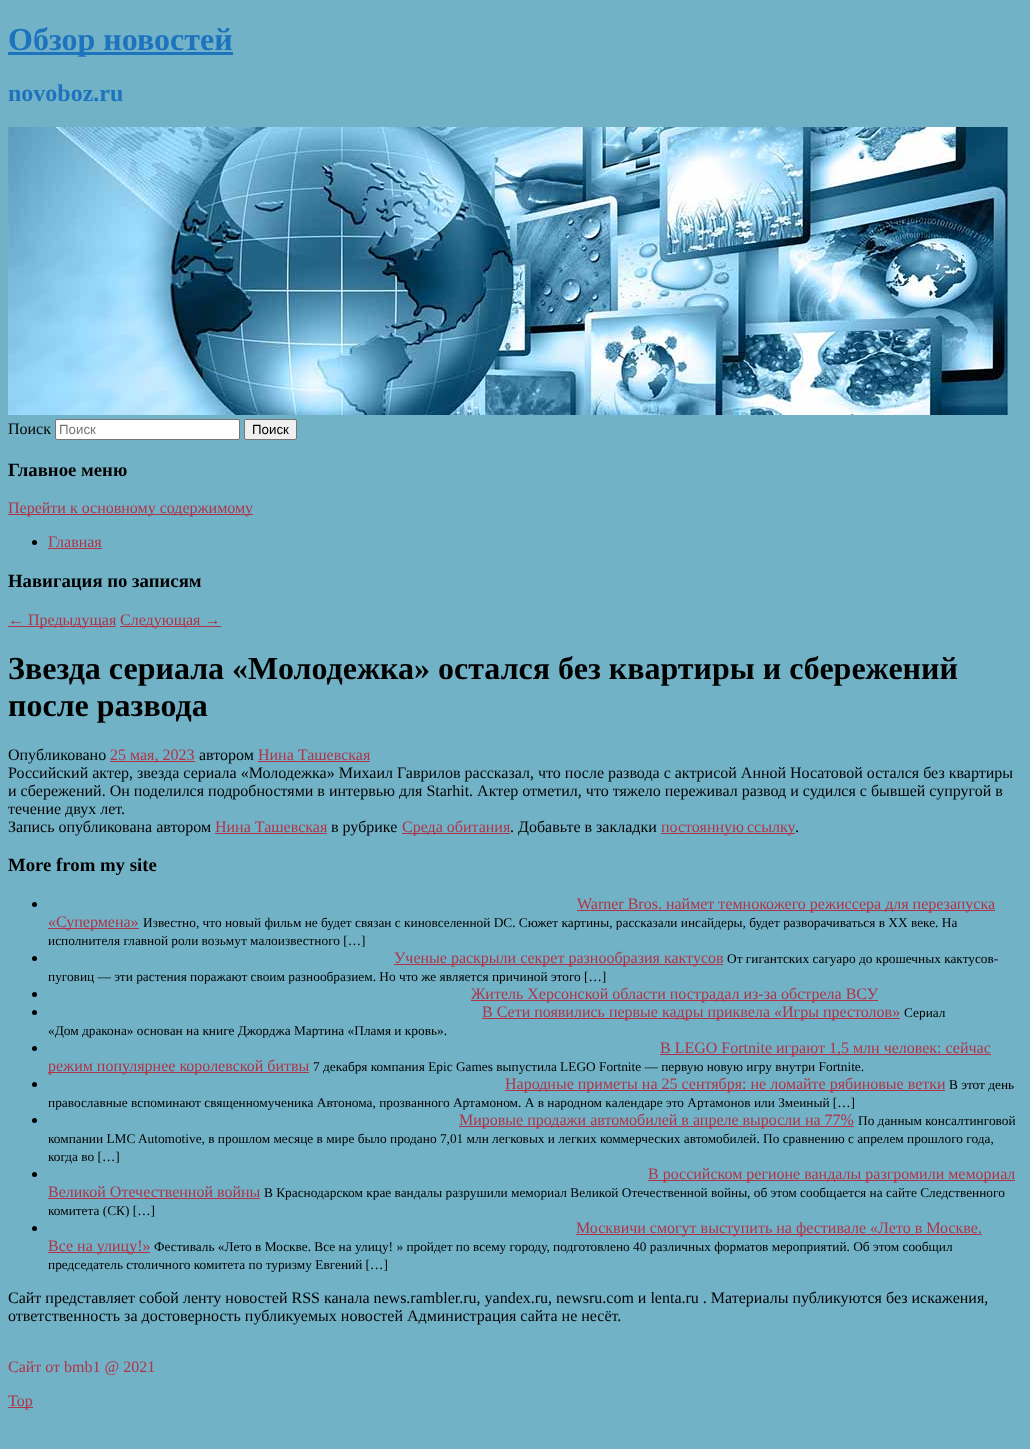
<svg xmlns="http://www.w3.org/2000/svg" width="1030" height="1449">
	<rect width="100%" height="100%" fill="#71B2C6" />
	<rect x="8" y="52" width="225" height="3" fill="#1E73BE" />
	<text x="8" y="50" font-family="Liberation Serif" font-size="32" font-weight="700" fill="#1E73BE">Обзор новостей</text>
	<text x="8" y="101" font-family="Liberation Serif" font-size="24" font-weight="700" fill="#1E73BE">novoboz.ru</text>
	<image x="8" y="127" width="1000" height="288" href="assets/img1.png" />
	<text x="8" y="434" font-family="Liberation Serif" font-size="16" fill="#000000">Поиск</text>
	<rect x="55.5" y="419.5" width="184" height="20" rx="1.5" fill="#FFFFFF" stroke="#767676" />
	<text x="59" y="434" font-family="Liberation Sans" font-size="13.33" fill="#757575">Поиск</text>
	<rect x="244.5" y="419.5" width="52" height="20" rx="1.5" fill="#EFEFEF" stroke="#767676" />
	<text x="252" y="434" font-family="Liberation Sans" font-size="13.33" fill="#000000">Поиск</text>
	<text x="8" y="476" font-family="Liberation Serif" font-size="18.75" font-weight="700" fill="#000000">Главное меню</text>
	<rect x="8" y="514" width="245" height="1" fill="#AF3449" />
	<text x="8" y="513" font-family="Liberation Serif" font-size="16" fill="#AF3449">Перейти к основному содержимому</text>
	<circle cx="34.5" cy="542.5" r="2.5" fill="#000000" />
	<text x="48" y="547" font-family="Liberation Serif" font-size="16" fill="#AF3449">Главная</text>
	<rect x="48" y="548" width="54" height="1" fill="#AF3449" />
	<text x="8" y="587" font-family="Liberation Serif" font-size="18.75" font-weight="700" fill="#000000">Навигация по записям</text>
	<rect x="8" y="626" width="108" height="1" fill="#AF3449" />
	<text x="8" y="625" font-family="Liberation Serif" font-size="16" fill="#AF3449">← Предыдущая</text>
	<rect x="120" y="626" width="101" height="1" fill="#AF3449" />
	<text x="120" y="625" font-family="Liberation Serif" font-size="16" fill="#AF3449">Следующая →</text>
	<g font-family="Liberation Serif" font-size="32" font-weight="700" fill="#000000">
		<text x="8" y="679">Звезда сериала «Молодежка» остался без квартиры и сбережений</text>
		<text x="8" y="716">после развода</text>
	</g>
	<text x="8" y="760" font-family="Liberation Serif" font-size="16" fill="#000000">Опубликовано</text>
	<rect x="110" y="761" width="85" height="1" fill="#AF3449" />
	<text x="110" y="760" font-family="Liberation Serif" font-size="16" fill="#AF3449">25 мая, 2023</text>
	<text x="199" y="760" font-family="Liberation Serif" font-size="16" fill="#000000">автором</text>
	<rect x="258" y="761" width="112" height="1" fill="#AF3449" />
	<text x="258" y="760" font-family="Liberation Serif" font-size="16" fill="#AF3449">Нина Ташевская</text>
	<g font-family="Liberation Serif" font-size="16" fill="#000000">
		<text x="8" y="778">Российский актер, звезда сериала «Молодежка» Михаил Гаврилов рассказал, что после развода с актрисой Анной Носатовой остался без квартиры</text>
		<text x="8" y="796">и сбережений. Он поделился подробностями в интервью для Starhit. Актер отметил, что тяжело переживал развод и судился с бывшей супругой в</text>
		<text x="8" y="814">течение двух лет.</text>
		<text x="8" y="832">Запись опубликована автором</text>
	</g>
	<text x="215" y="832" font-family="Liberation Serif" font-size="16" fill="#AF3449">Нина Ташевская</text>
	<rect x="215" y="833" width="112" height="1" fill="#AF3449" />
	<text x="331" y="832" font-family="Liberation Serif" font-size="16" fill="#000000">в рубрике</text>
	<rect x="402" y="833" width="108" height="1" fill="#AF3449" />
	<text x="402" y="832" font-family="Liberation Serif" font-size="16" fill="#AF3449">Среда обитания</text>
	<text x="510" y="832" font-family="Liberation Serif" font-size="16" fill="#000000">. Добавьте в закладки</text>
	<rect x="661" y="833" width="134" height="1" fill="#AF3449" />
	<text x="661" y="832" word-spacing="-1" font-family="Liberation Serif" font-size="16" fill="#AF3449">постоянную ссылку</text>
	<text x="795" y="832" font-family="Liberation Serif" font-size="16" fill="#000000">.</text>
	<text x="8" y="871" font-family="Liberation Serif" font-size="18.75" font-weight="700" fill="#000000">More from my site</text>
	<circle cx="34.5" cy="904.5" r="2.5" fill="#000000" />
	<rect x="577" y="910" width="418" height="1" fill="#AF3449" />
	<text x="577" y="909" font-family="Liberation Serif" font-size="16" fill="#AF3449">Warner Bros. наймет темнокожего режиссера для перезапуска</text>
	<rect x="48" y="928" width="91" height="1" fill="#AF3449" />
	<text x="48" y="927" font-family="Liberation Serif" font-size="16" fill="#AF3449">«Супермена»</text>
	<g font-family="Liberation Serif" font-size="13.33" fill="#000000">
		<text x="143" y="927">Известно, что новый фильм не будет связан с киновселенной DC. Сюжет картины, рассказали инсайдеры, будет разворачиваться в ХХ веке. На</text>
		<text x="48" y="945">исполнителя главной роли возьмут малоизвестного […]</text>
	</g>
	<circle cx="34.5" cy="958.5" r="2.5" fill="#000000" />
	<rect x="394" y="964" width="329" height="1" fill="#AF3449" />
	<text x="394" y="963" font-family="Liberation Serif" font-size="16" fill="#AF3449">Ученые раскрыли секрет разнообразия кактусов</text>
	<g font-family="Liberation Serif" font-size="13.33" fill="#000000">
		<text x="727" y="963">От гигантских сагуаро до крошечных кактусов-</text>
		<text x="48" y="981">пуговиц — эти растения поражают своим разнообразием. Но что же является причиной этого […]</text>
	</g>
	<circle cx="34.5" cy="994.5" r="2.5" fill="#000000" />
	<rect x="471" y="1000" width="407" height="1" fill="#AF3449" />
	<text x="471" y="999" font-family="Liberation Serif" font-size="16" fill="#AF3449">Житель Херсонской области пострадал из-за обстрела ВСУ</text>
	<circle cx="34.5" cy="1012.5" r="2.5" fill="#000000" />
	<rect x="482" y="1018" width="418" height="1" fill="#AF3449" />
	<text x="482" y="1017" font-family="Liberation Serif" font-size="16" fill="#AF3449">В Сети появились первые кадры приквела «Игры престолов»</text>
	<g font-family="Liberation Serif" font-size="13.33" fill="#000000">
		<text x="904" y="1017">Сериал</text>
		<text x="48" y="1035">«Дом дракона» основан на книге Джорджа Мартина «Пламя и кровь».</text>
	</g>
	<circle cx="34.5" cy="1048.5" r="2.5" fill="#000000" />
	<rect x="660" y="1054" width="331" height="1" fill="#AF3449" />
	<text x="660" y="1053" font-family="Liberation Serif" font-size="16" fill="#AF3449">В LEGO Fortnite играют 1,5 млн человек: сейчас</text>
	<rect x="48" y="1072" width="261" height="1" fill="#AF3449" />
	<text x="48" y="1071" font-family="Liberation Serif" font-size="16" fill="#AF3449">режим популярнее королевской битвы</text>
	<text x="313" y="1071" font-family="Liberation Serif" font-size="13.33" fill="#000000">7 декабря компания Epic Games выпустила LEGO Fortnite — первую новую игру внутри Fortnite.</text>
	<circle cx="34.5" cy="1084.5" r="2.5" fill="#000000" />
	<rect x="505" y="1090" width="440" height="1" fill="#AF3449" />
	<text x="505" y="1089" font-family="Liberation Serif" font-size="16" fill="#AF3449">Народные приметы на 25 сентября: не ломайте рябиновые ветки</text>
	<g font-family="Liberation Serif" font-size="13.33" fill="#000000">
		<text x="949" y="1089">В этот день</text>
		<text x="48" y="1107">православные вспоминают священномученика Автонома, прозванного Артамоном. А в народном календаре это Артамонов или Змеиный […]</text>
	</g>
	<circle cx="34.5" cy="1120.5" r="2.5" fill="#000000" />
	<rect x="459" y="1126" width="395" height="1" fill="#AF3449" />
	<text x="459" y="1125" font-family="Liberation Serif" font-size="16" fill="#AF3449">Мировые продажи автомобилей в апреле выросли на 77%</text>
	<g font-family="Liberation Serif" font-size="13.33" fill="#000000">
		<text x="858" y="1125">По данным консалтинговой</text>
		<text x="48" y="1143">компании LMC Automotive, в прошлом месяце в мире было продано 7,01 млн легковых и легких коммерческих автомобилей. По сравнению с апрелем прошлого года,</text>
		<text x="48" y="1161">когда во […]</text>
	</g>
	<circle cx="34.5" cy="1174.5" r="2.5" fill="#000000" />
	<rect x="648" y="1180" width="367" height="1" fill="#AF3449" />
	<g font-family="Liberation Serif" font-size="16" fill="#AF3449">
		<text x="648" y="1179">В российском регионе вандалы разгромили мемориал</text>
		<text x="48" y="1197">Великой Отечественной войны</text>
	</g>
	<rect x="48" y="1198" width="212" height="1" fill="#AF3449" />
	<g font-family="Liberation Serif" font-size="13.33" fill="#000000">
		<text x="264" y="1197">В Краснодарском крае вандалы разрушили мемориал Великой Отечественной войны, об этом сообщается на сайте Следственного</text>
		<text x="48" y="1215">комитета (СК) […]</text>
	</g>
	<circle cx="34.5" cy="1228.5" r="2.5" fill="#000000" />
	<rect x="576" y="1234" width="406" height="1" fill="#AF3449" />
	<text x="576" y="1233" font-family="Liberation Serif" font-size="16" fill="#AF3449">Москвичи смогут выступить на фестивале «Лето в Москве.</text>
	<rect x="48" y="1252" width="102" height="1" fill="#AF3449" />
	<text x="48" y="1251" font-family="Liberation Serif" font-size="16" fill="#AF3449">Все на улицу!»</text>
	<g font-family="Liberation Serif" font-size="13.33" fill="#000000">
		<text x="154" y="1251">Фестиваль «Лето в Москве. Все на улицу! » пройдет по всему городу, подготовлено 40 различных форматов мероприятий. Об этом сообщил</text>
		<text x="48" y="1269">председатель столичного комитета по туризму Евгений […]</text>
	</g>
	<g font-family="Liberation Serif" font-size="16" fill="#000000">
		<text x="8" y="1303">Сайт представляет собой ленту новостей RSS канала news.rambler.ru, yandex.ru, newsru.com и lenta.ru . Материалы публикуются без искажения,</text>
		<text x="8" y="1321">ответственность за достоверность публикуемых новостей Администрация сайта не несёт.</text>
	</g>
	<text x="8" y="1372" font-family="Liberation Serif" font-size="16" fill="#AF3449">Сайт от bmb1 @ 2021</text>
	<rect x="8" y="1407" width="25" height="1" fill="#AF3449" />
	<text x="8" y="1406" font-family="Liberation Serif" font-size="16" fill="#AF3449">Top</text>
</svg>
